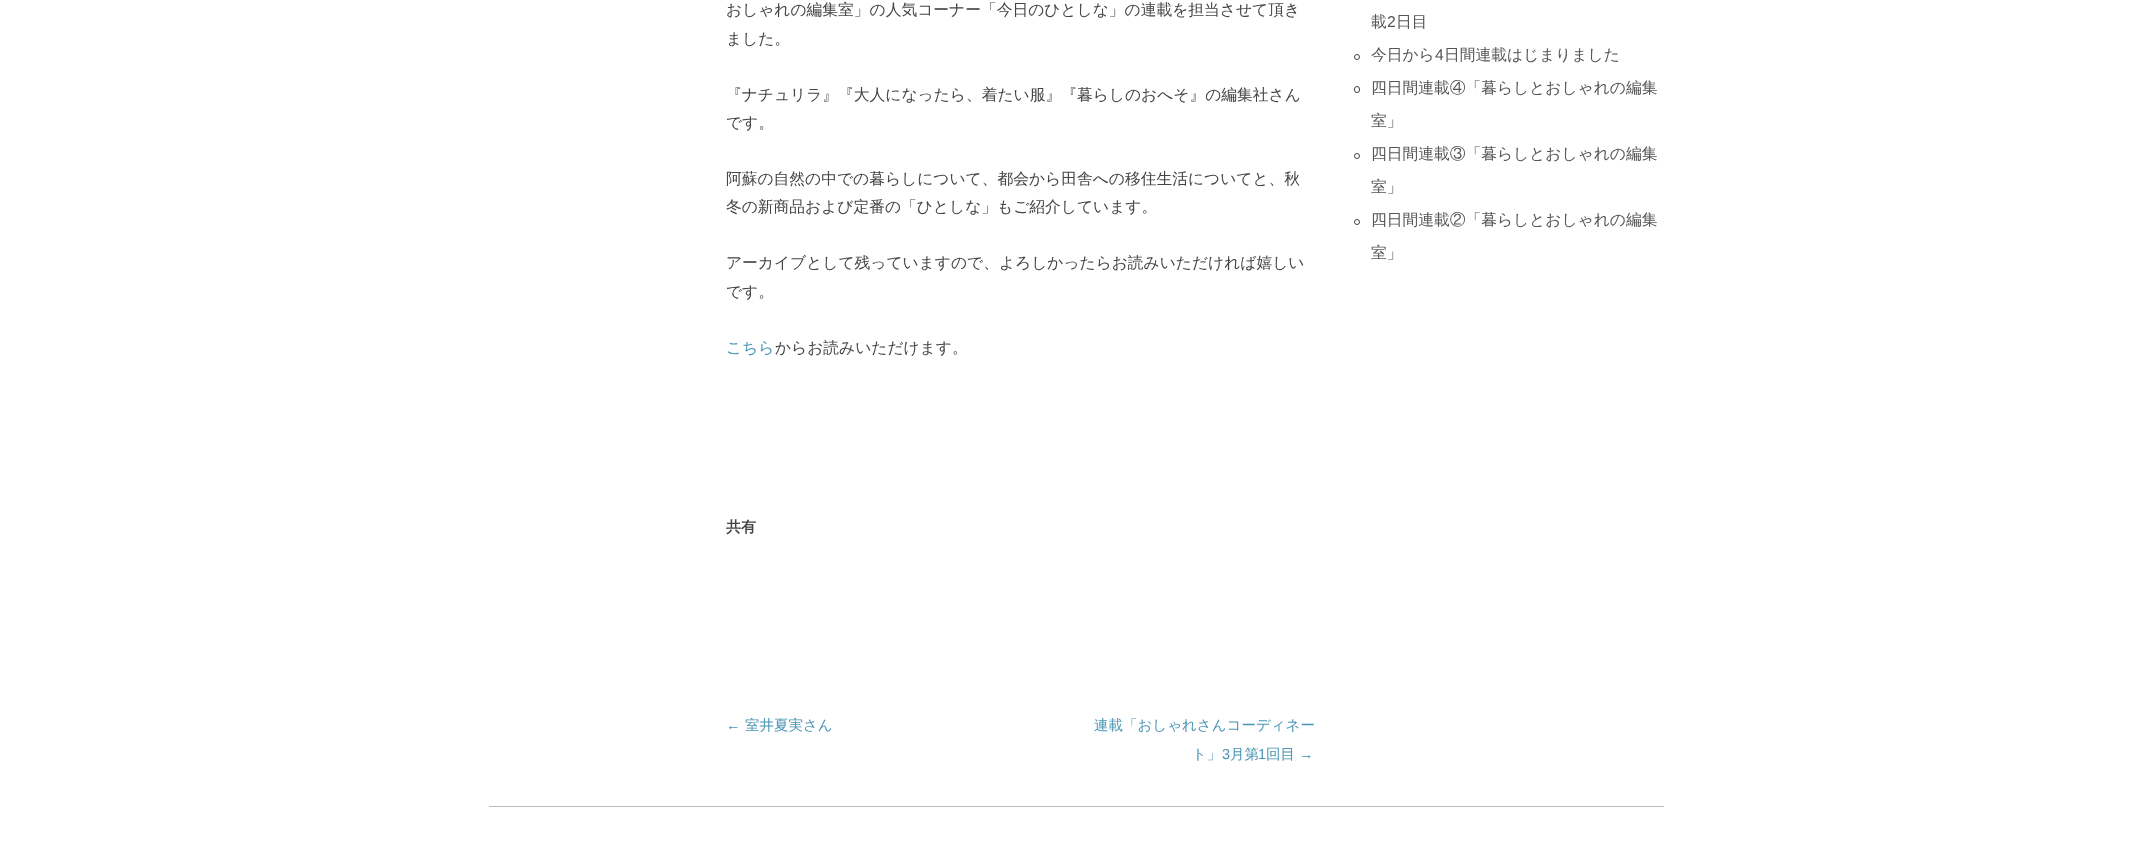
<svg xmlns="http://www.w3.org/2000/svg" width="2152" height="841">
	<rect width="100%" height="100%" fill="#FFFFFF" />
	<g font-family="WenQuanYi Zen Hei" font-size="15.75" font-weight="500" fill="#444444">
		<text x="726" y="15">おしゃれの編集室」の人気コーナー「今日のひとしな」の連載を担当させて頂き</text>
		<text x="726" y="44">ました。</text>
		<text x="726" y="100">『ナチュリラ』『大人になったら、着たい服』『暮らしのおへそ』の編集社さん</text>
		<text x="726" y="128">です。</text>
		<text x="726" y="184">阿蘇の自然の中での暮らしについて、都会から田舎への移住生活についてと、秋</text>
		<text x="726" y="212">冬の新商品および定番の「ひとしな」もご紹介しています。</text>
		<text x="726" y="268">アーカイブとして残っていますので、よろしかったらお読みいただければ嬉しい</text>
		<text x="726" y="297">です。</text>
	</g>
	<text x="726" y="353" font-family="WenQuanYi Zen Hei" font-size="15.75" font-weight="500" fill="#4A95B5">こちら</text>
	<text x="775" y="353" font-family="WenQuanYi Zen Hei" font-size="15.75" font-weight="500" fill="#444444">からお読みいただけます。</text>
	<text x="726" y="532" font-family="WenQuanYi Zen Hei" font-size="15" font-weight="700" fill="#444444">共有</text>
	<text x="726" y="730" font-family="Liberation Sans" font-size="14.5" fill="#4A95B5">←</text>
	<g font-family="WenQuanYi Zen Hei" font-size="14.5" font-weight="500" fill="#4A95B5">
		<text x="745" y="730">室井夏実さん</text>
		<text x="1094" y="730">連載「おしゃれさんコーディネー</text>
		<text x="1192" y="759">ト」</text>
	</g>
	<text x="1222" y="759" font-family="Liberation Sans" font-size="14.5" fill="#4A95B5">3</text>
	<text x="1230" y="759" font-family="WenQuanYi Zen Hei" font-size="14.5" font-weight="500" fill="#4A95B5">月第</text>
	<text x="1258" y="759" font-family="Liberation Sans" font-size="14.5" fill="#4A95B5">1</text>
	<text x="1266" y="759" font-family="WenQuanYi Zen Hei" font-size="14.5" font-weight="500" fill="#4A95B5">回目</text>
	<text x="1299" y="759" font-family="Liberation Sans" font-size="14.5" fill="#4A95B5">→</text>
	<text x="1371" y="27" font-family="WenQuanYi Zen Hei" font-size="15.75" font-weight="500" fill="#555555">載</text>
	<text x="1387" y="27" font-family="Liberation Sans" font-size="15.75" fill="#555555">2</text>
	<text x="1396" y="27" font-family="WenQuanYi Zen Hei" font-size="15.75" font-weight="500" fill="#555555">日目</text>
	<circle cx="1357" cy="57" r="2.5" fill="none" stroke="#444444" />
	<text x="1371" y="60" font-family="WenQuanYi Zen Hei" font-size="15.75" font-weight="500" fill="#555555">今日から</text>
	<text x="1435" y="60" font-family="Liberation Sans" font-size="15.75" fill="#555555">4</text>
	<text x="1444" y="60" font-family="WenQuanYi Zen Hei" font-size="15.75" font-weight="500" fill="#555555">日間連載はじまりました</text>
	<rect x="1354.5" y="86.5" width="5" height="6" rx="2.5" fill="none" stroke="#444444" />
	<g font-family="WenQuanYi Zen Hei" font-size="15.75" font-weight="500" fill="#555555">
		<text x="1371" y="93">四日間連載④「暮らしとおしゃれの編集</text>
		<text x="1371" y="126">室」</text>
	</g>
	<circle cx="1357" cy="156" r="2.5" fill="none" stroke="#444444" />
	<g font-family="WenQuanYi Zen Hei" font-size="15.75" font-weight="500" fill="#555555">
		<text x="1371" y="159">四日間連載③「暮らしとおしゃれの編集</text>
		<text x="1371" y="192">室」</text>
	</g>
	<circle cx="1357" cy="222" r="2.5" fill="none" stroke="#444444" />
	<g font-family="WenQuanYi Zen Hei" font-size="15.75" font-weight="500" fill="#555555">
		<text x="1371" y="225">四日間連載②「暮らしとおしゃれの編集</text>
		<text x="1371" y="258">室」</text>
	</g>
	<rect x="489" y="806" width="1175" height="1" fill="#BBBBBB" />
</svg>
